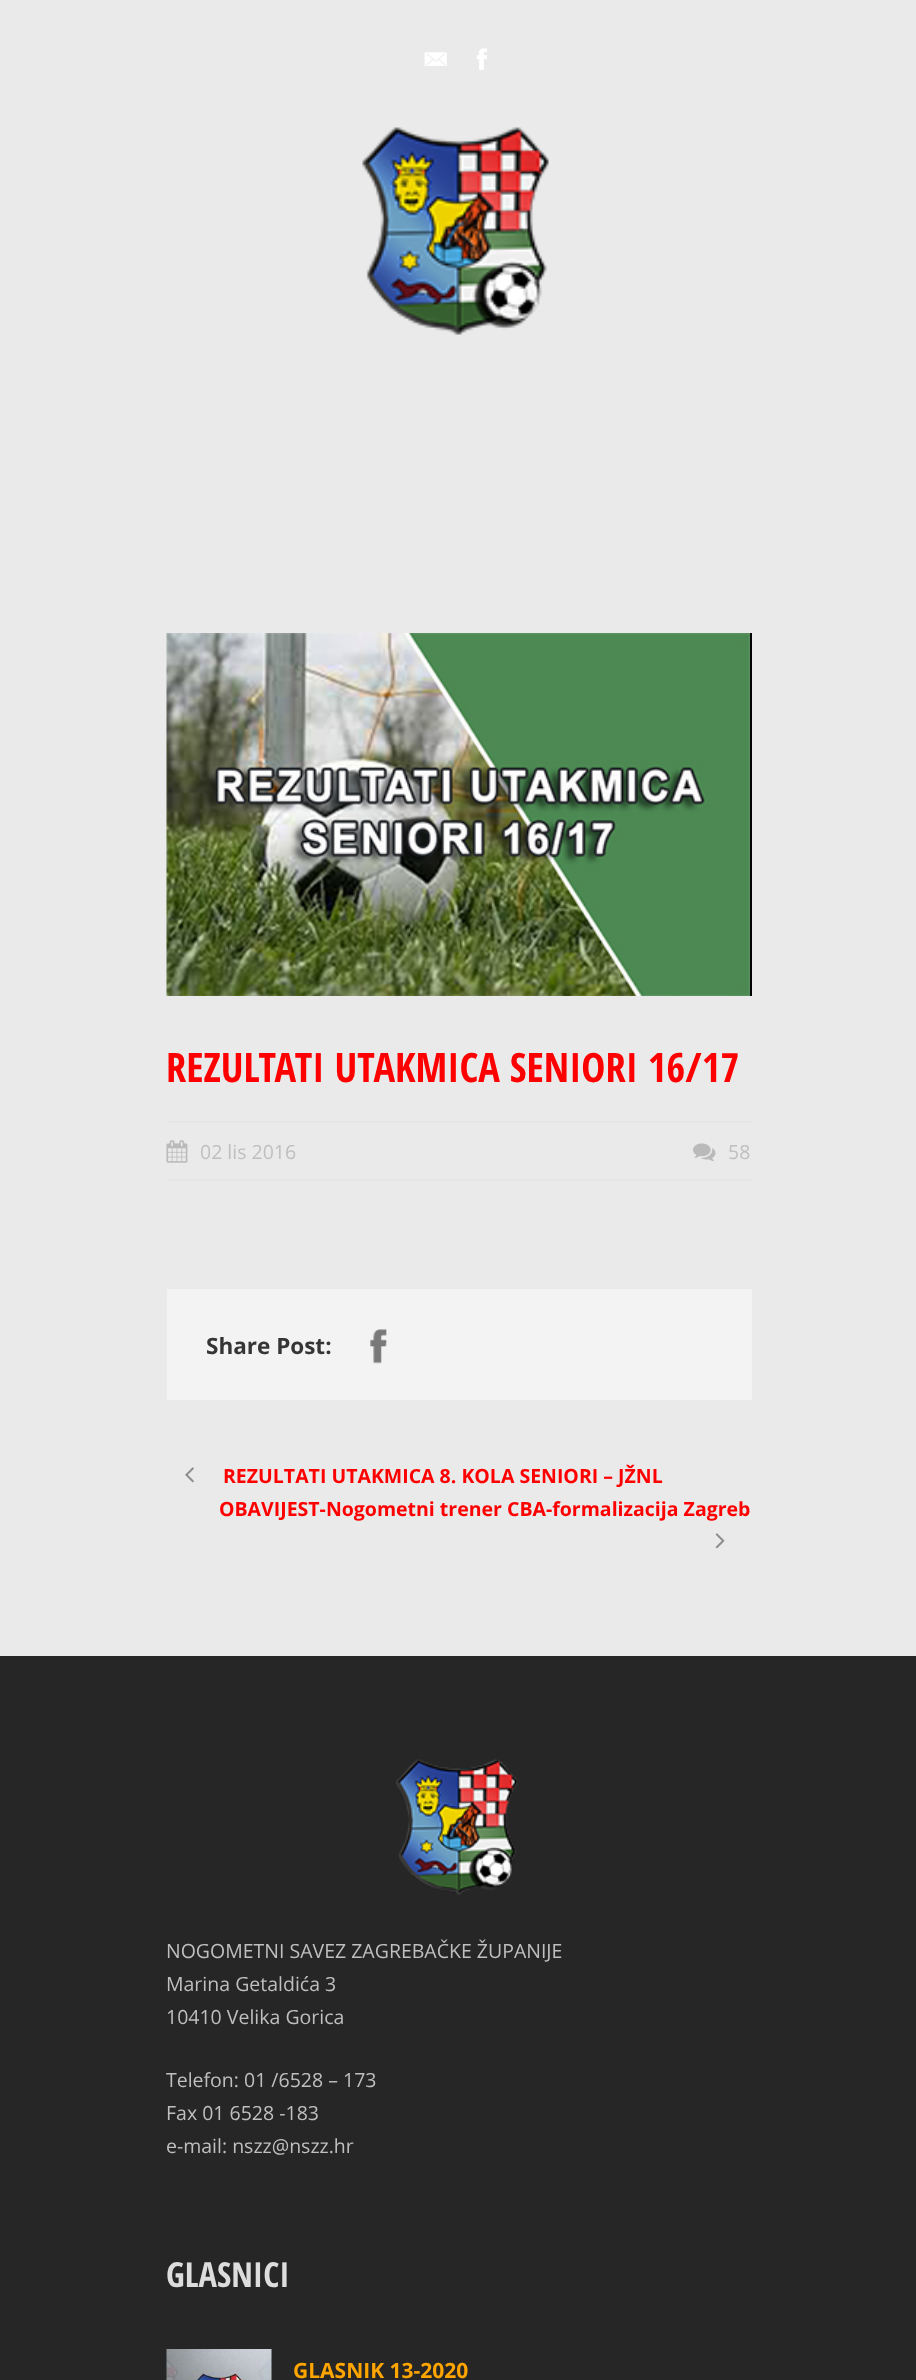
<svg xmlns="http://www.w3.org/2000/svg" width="916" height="2380">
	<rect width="100%" height="100%" fill="#EAEAEA" />
	<image x="424" y="52" width="23" height="14" href="assets/img1.png" />
	<image x="476" y="48" width="11" height="22" href="assets/img2.png" />
	<image x="362" y="127" width="187" height="208" href="assets/img3.png" />
	<rect x="750" y="633" width="2" height="363" fill="#000000" />
	<image x="166" y="633" width="584" height="363" href="assets/img4.png" />
	<text x="166" y="1082" font-family="Open Sans Condensed" font-size="40.5" font-weight="700" fill="#FF0000">REZULTATI UTAKMICA SENIORI 16/17</text>
	<rect x="167" y="1121" width="585" height="2" fill="#E5E5E5" />
	<rect x="167" y="1179" width="585" height="2" fill="#E5E5E5" />
	<image x="166" y="1140" width="22" height="23" href="assets/img5.png" />
	<text x="200" y="1159" font-family="Open Sans" font-size="19.5" fill="#BFBFBF">02 lis 2016</text>
	<image x="693" y="1143" width="23" height="18" href="assets/img6.png" />
	<text x="728" y="1159" font-family="Open Sans" font-size="19.5" fill="#BFBFBF">58</text>
	<rect x="167" y="1289" width="585" height="111" fill="#F3F3F3" />
	<text x="206" y="1354" font-family="Open Sans" font-size="22.5" font-weight="700" fill="#353535">Share Post:</text>
	<image x="370" y="1329" width="17" height="35" href="assets/img7.png" />
	<image x="185" y="1467" width="9" height="16" href="assets/img8.png" />
	<g font-family="Open Sans" font-size="19.5" font-weight="700" fill="#FF0000">
		<text x="223" y="1483">REZULTATI UTAKMICA 8. KOLA SENIORI – JŽNL</text>
		<text x="219" y="1516">OBAVIJEST-Nogometni trener CBA-formalizacija Zagreb</text>
	</g>
	<image x="715" y="1533" width="10" height="16" href="assets/img9.png" />
	<rect x="0" y="1656" width="916" height="724" fill="#262626" />
	<image x="396" y="1759" width="122" height="136" href="assets/img10.png" />
	<g font-family="Open Sans" font-size="19.5" fill="#BFBFBF">
		<text x="166" y="1958">NOGOMETNI SAVEZ ZAGREBAČKE ŽUPANIJE</text>
		<text x="166" y="1991">Marina Getaldića 3</text>
		<text x="166" y="2024">10410 Velika Gorica</text>
		<text x="166" y="2087">Telefon: 01 /6528 – 173</text>
		<text x="166" y="2120">Fax 01 6528 -183</text>
		<text x="166" y="2153">e-mail: nszz@nszz.hr</text>
	</g>
	<text x="166" y="2287" font-family="Open Sans Condensed" font-size="34.5" font-weight="700" fill="#DDDDDD">GLASNICI</text>
	<image x="166" y="2349" width="106" height="31" href="assets/img11.png" />
	<text x="293" y="2378" font-family="Open Sans" font-size="21" font-weight="700" fill="#FFA500">GLASNIK 13-2020</text>
</svg>
